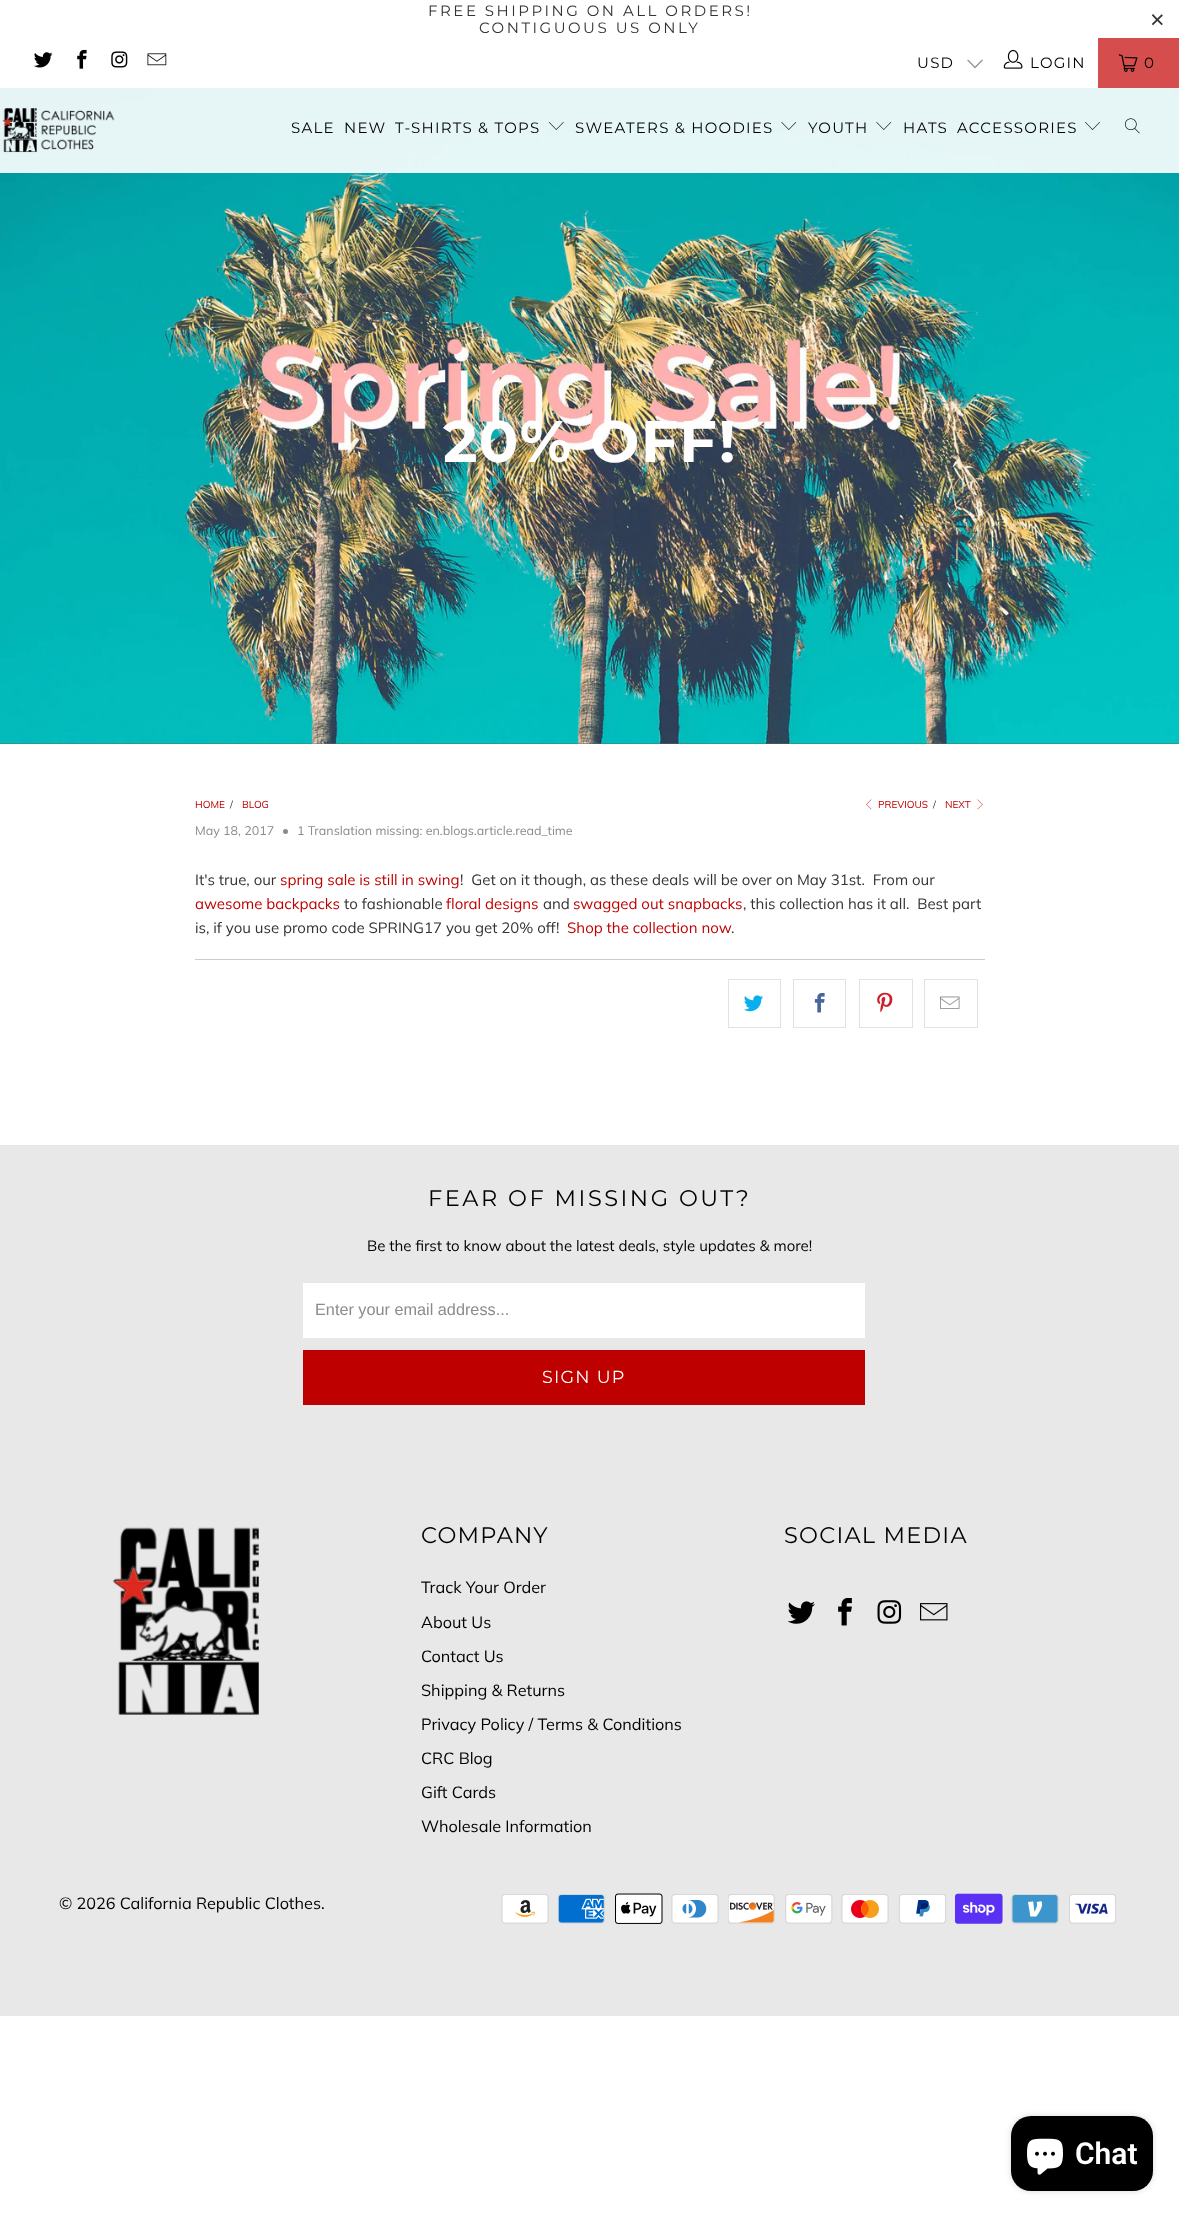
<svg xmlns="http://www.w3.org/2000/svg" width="1179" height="2217">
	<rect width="100%" height="100%" fill="#FFFFFF" />
	<g font-family="Montserrat" font-size="15" letter-spacing="2.5" fill="#333333">
		<text x="428" y="16">FREE SHIPPING ON ALL ORDERS!</text>
		<text x="479" y="33">CONTIGUOUS US ONLY</text>
	</g>
	<text x="1150" y="28" font-family="Liberation Sans" font-size="25" letter-spacing="2.5" fill="#333333">×</text>
	<image x="34" y="52" width="19" height="16" href="assets/img1.png" />
	<image x="77" y="49" width="10" height="20" href="assets/img2.png" />
	<image x="111" y="51" width="17" height="17" href="assets/img3.png" />
	<image x="147" y="53" width="20" height="13" href="assets/img4.png" />
	<image x="967" y="59" width="16" height="10" href="assets/img5.png" />
	<text x="917" y="68" font-family="Montserrat" font-size="15" letter-spacing="1.25" fill="#000000">USD</text>
	<image x="1003" y="49" width="20" height="20" href="assets/img6.png" />
	<text x="1030" y="68" font-family="Montserrat" font-size="15" letter-spacing="1.25" fill="#000000">LOGIN</text>
	<rect x="1098" y="38" width="81" height="50" fill="#D54D4D" />
	<image x="1118" y="54" width="20" height="18" href="assets/img7.png" />
	<text x="1144" y="68" font-family="Montserrat" font-size="15" letter-spacing="1.25" fill="#000000">0</text>
	<rect x="0" y="743" width="1179" height="1" fill="#666666" />
	<image x="0" y="88" width="1179" height="656" href="assets/img14.png" />
	<rect x="0" y="88" width="1179" height="85" fill="#FFFFFF" fill-opacity="0.9" />
	<image x="2" y="108" width="113" height="45" href="assets/img8.png" />
	<g font-family="Montserrat" font-size="15" letter-spacing="1.25" fill="#000000">
		<text x="291" y="133">SALE</text>
		<text x="344" y="133">NEW</text>
		<text x="395" y="133">T-SHIRTS &amp; TOPS</text>
	</g>
	<image x="548" y="122" width="16" height="8" href="assets/img9.png" />
	<text x="575" y="133" font-family="Montserrat" font-size="15" letter-spacing="1.25" fill="#000000">SWEATERS &amp; HOODIES</text>
	<image x="781" y="122" width="16" height="8" href="assets/img10.png" />
	<text x="808" y="133" font-family="Montserrat" font-size="15" letter-spacing="1.25" fill="#000000">YOUTH</text>
	<image x="876" y="122" width="16" height="8" href="assets/img11.png" />
	<g font-family="Montserrat" font-size="15" letter-spacing="1.25" fill="#000000">
		<text x="903" y="133">HATS</text>
		<text x="957" y="133">ACCESSORIES</text>
	</g>
	<image x="1085" y="122" width="15" height="8" href="assets/img12.png" />
	<image x="1125" y="118" width="15" height="16" href="assets/img13.png" />
	<text x="443" y="462" font-family="Montserrat" font-size="58.5" font-weight="700" letter-spacing="1.25" fill="#FFFFFF">20% OFF!</text>
	<text x="195" y="808" font-family="Muli" font-size="10" fill="#BF0000">HOME</text>
	<text x="230" y="808" font-family="Muli" font-size="10" fill="#333333">/</text>
	<text x="242" y="808" font-family="Muli" font-size="10" fill="#BF0000">BLOG</text>
	<image x="866" y="799" width="6" height="11" href="assets/img15.png" />
	<text x="878" y="808" font-family="Muli" font-size="10" fill="#BF0000">PREVIOUS</text>
	<text x="933" y="808" font-family="Muli" font-size="10" fill="#333333">/</text>
	<text x="945" y="808" font-family="Muli" font-size="10" fill="#BF0000">NEXT</text>
	<image x="977" y="799" width="6" height="11" href="assets/img16.png" />
	<text x="195" y="835" font-family="Muli" font-size="12.5" fill="#8C8B8B">May 18, 2017</text>
	<circle cx="285.5" cy="831.5" r="2.5" fill="#8C8B8B" />
	<text x="297" y="835" font-family="Muli" font-size="12.5" fill="#8C8B8B">1 Translation missing: en.blogs.article.read_time</text>
	<text x="195" y="885" font-family="Muli" font-size="15" fill="#333333">It's true, our</text>
	<text x="280" y="885" font-family="Muli" font-size="15" fill="#BF0000">spring sale is still in swing</text>
	<text x="460" y="885" font-family="Muli" font-size="15" fill="#333333" xml:space="preserve">!  Get on it though, as these deals will be over on May 31st.  From our</text>
	<text x="195" y="909" font-family="Muli" font-size="15" fill="#BF0000">awesome backpacks</text>
	<text x="344" y="909" font-family="Muli" font-size="15" fill="#333333">to fashionable</text>
	<text x="446" y="909" font-family="Muli" font-size="15" fill="#BF0000">floral designs</text>
	<text x="543" y="909" font-family="Muli" font-size="15" fill="#333333">and</text>
	<text x="573" y="909" font-family="Muli" font-size="15" fill="#BF0000">swagged out snapbacks</text>
	<g font-family="Muli" font-size="15" fill="#333333">
		<text x="743" y="909" xml:space="preserve">, this collection has it all.  Best part</text>
		<text x="195" y="933">is, if you use promo code SPRING17 you get 20% off!</text>
	</g>
	<text x="567" y="933" font-family="Muli" font-size="15" fill="#BF0000">Shop the collection now</text>
	<text x="731" y="933" font-family="Muli" font-size="15" fill="#333333">.</text>
	<rect x="195" y="959" width="790" height="1" fill="#CCCCCC" />
	<rect x="728.5" y="979.5" width="52" height="48" fill="none" stroke="#E2E2E2" />
	<image x="744" y="995" width="20" height="17" href="assets/img17.png" />
	<rect x="793.5" y="979.5" width="52" height="48" fill="none" stroke="#E2E2E2" />
	<image x="814" y="993" width="11" height="20" href="assets/img18.png" />
	<rect x="859.5" y="979.5" width="53" height="48" fill="none" stroke="#E2E2E2" />
	<image x="877" y="992" width="16" height="21" href="assets/img19.png" />
	<rect x="924.5" y="979.5" width="53" height="48" fill="none" stroke="#E2E2E2" />
	<image x="940" y="996" width="20" height="13" href="assets/img20.png" />
	<rect x="0" y="1145" width="1179" height="871" fill="#E8E8E8" />
	<text x="428" y="1206" font-family="Montserrat" font-size="22.5" letter-spacing="2.5" fill="#000000">FEAR OF MISSING OUT?</text>
	<text x="367" y="1251" font-family="Muli" font-size="15" fill="#000000">Be the first to know about the latest deals, style updates &amp; more!</text>
	<rect x="303" y="1283" width="562" height="55" fill="#FFFFFF" />
	<text x="315" y="1315" font-family="Liberation Sans" font-size="16.25" fill="#8C8B8B">Enter your email address...</text>
	<rect x="303" y="1350" width="562" height="55" fill="#BF0000" />
	<text x="542" y="1383" font-family="Montserrat" font-size="17.5" letter-spacing="1.25" fill="#FFFFFF">SIGN UP</text>
	<image x="112" y="1527" width="147" height="188" href="assets/img21.png" />
	<text x="421" y="1543" font-family="Montserrat" font-size="22.5" letter-spacing="1.25" fill="#000000">COMPANY</text>
	<g font-family="Muli" font-size="16.25" fill="#000000">
		<text x="421" y="1593">Track Your Order</text>
		<text x="421" y="1628">About Us</text>
		<text x="421" y="1662">Contact Us</text>
		<text x="421" y="1696">Shipping &amp; Returns</text>
		<text x="421" y="1730">Privacy Policy / Terms &amp; Conditions</text>
		<text x="421" y="1764">CRC Blog</text>
		<text x="421" y="1798">Gift Cards</text>
		<text x="421" y="1832">Wholesale Information</text>
	</g>
	<text x="784" y="1543" font-family="Montserrat" font-size="22.5" letter-spacing="1.25" fill="#000000">SOCIAL MEDIA</text>
	<image x="787" y="1601" width="28" height="23" href="assets/img22.png" />
	<image x="838" y="1598" width="14" height="28" href="assets/img23.png" />
	<image x="877" y="1600" width="25" height="24" href="assets/img24.png" />
	<image x="920" y="1603" width="28" height="18" href="assets/img25.png" />
	<g font-family="Muli" font-size="16.25" fill="#000000">
		<text x="59" y="1909">© 2026 California Republic Clothes</text>
		<text x="321" y="1909">.</text>
	</g>
	<image x="501" y="1894" width="48" height="30" href="assets/img26.png" />
	<image x="558" y="1894" width="47" height="30" href="assets/img27.png" />
	<image x="615" y="1893" width="48" height="31" href="assets/img28.png" />
	<image x="671" y="1894" width="48" height="30" href="assets/img29.png" />
	<image x="728" y="1894" width="47" height="30" href="assets/img30.png" />
	<image x="785" y="1894" width="48" height="30" href="assets/img31.png" />
	<image x="841" y="1894" width="48" height="30" href="assets/img32.png" />
	<image x="899" y="1894" width="47" height="30" href="assets/img33.png" />
	<image x="955" y="1893" width="48" height="31" href="assets/img34.png" />
	<image x="1011" y="1894" width="48" height="30" href="assets/img35.png" />
	<image x="1069" y="1894" width="47" height="30" href="assets/img36.png" />
	<rect x="1011" y="2116" width="142" height="75" rx="20" fill="#000000" fill-opacity="0.15" filter="blur(3px)" />
	<rect x="1011" y="2116" width="142" height="75" rx="20" fill="#000000" />
	<image x="1027" y="2138" width="36" height="37" href="assets/img37.png" />
	<text x="1075" y="2164" font-family="Roboto" font-size="30" font-weight="600" fill="#FFFFFF">Chat</text>
</svg>
